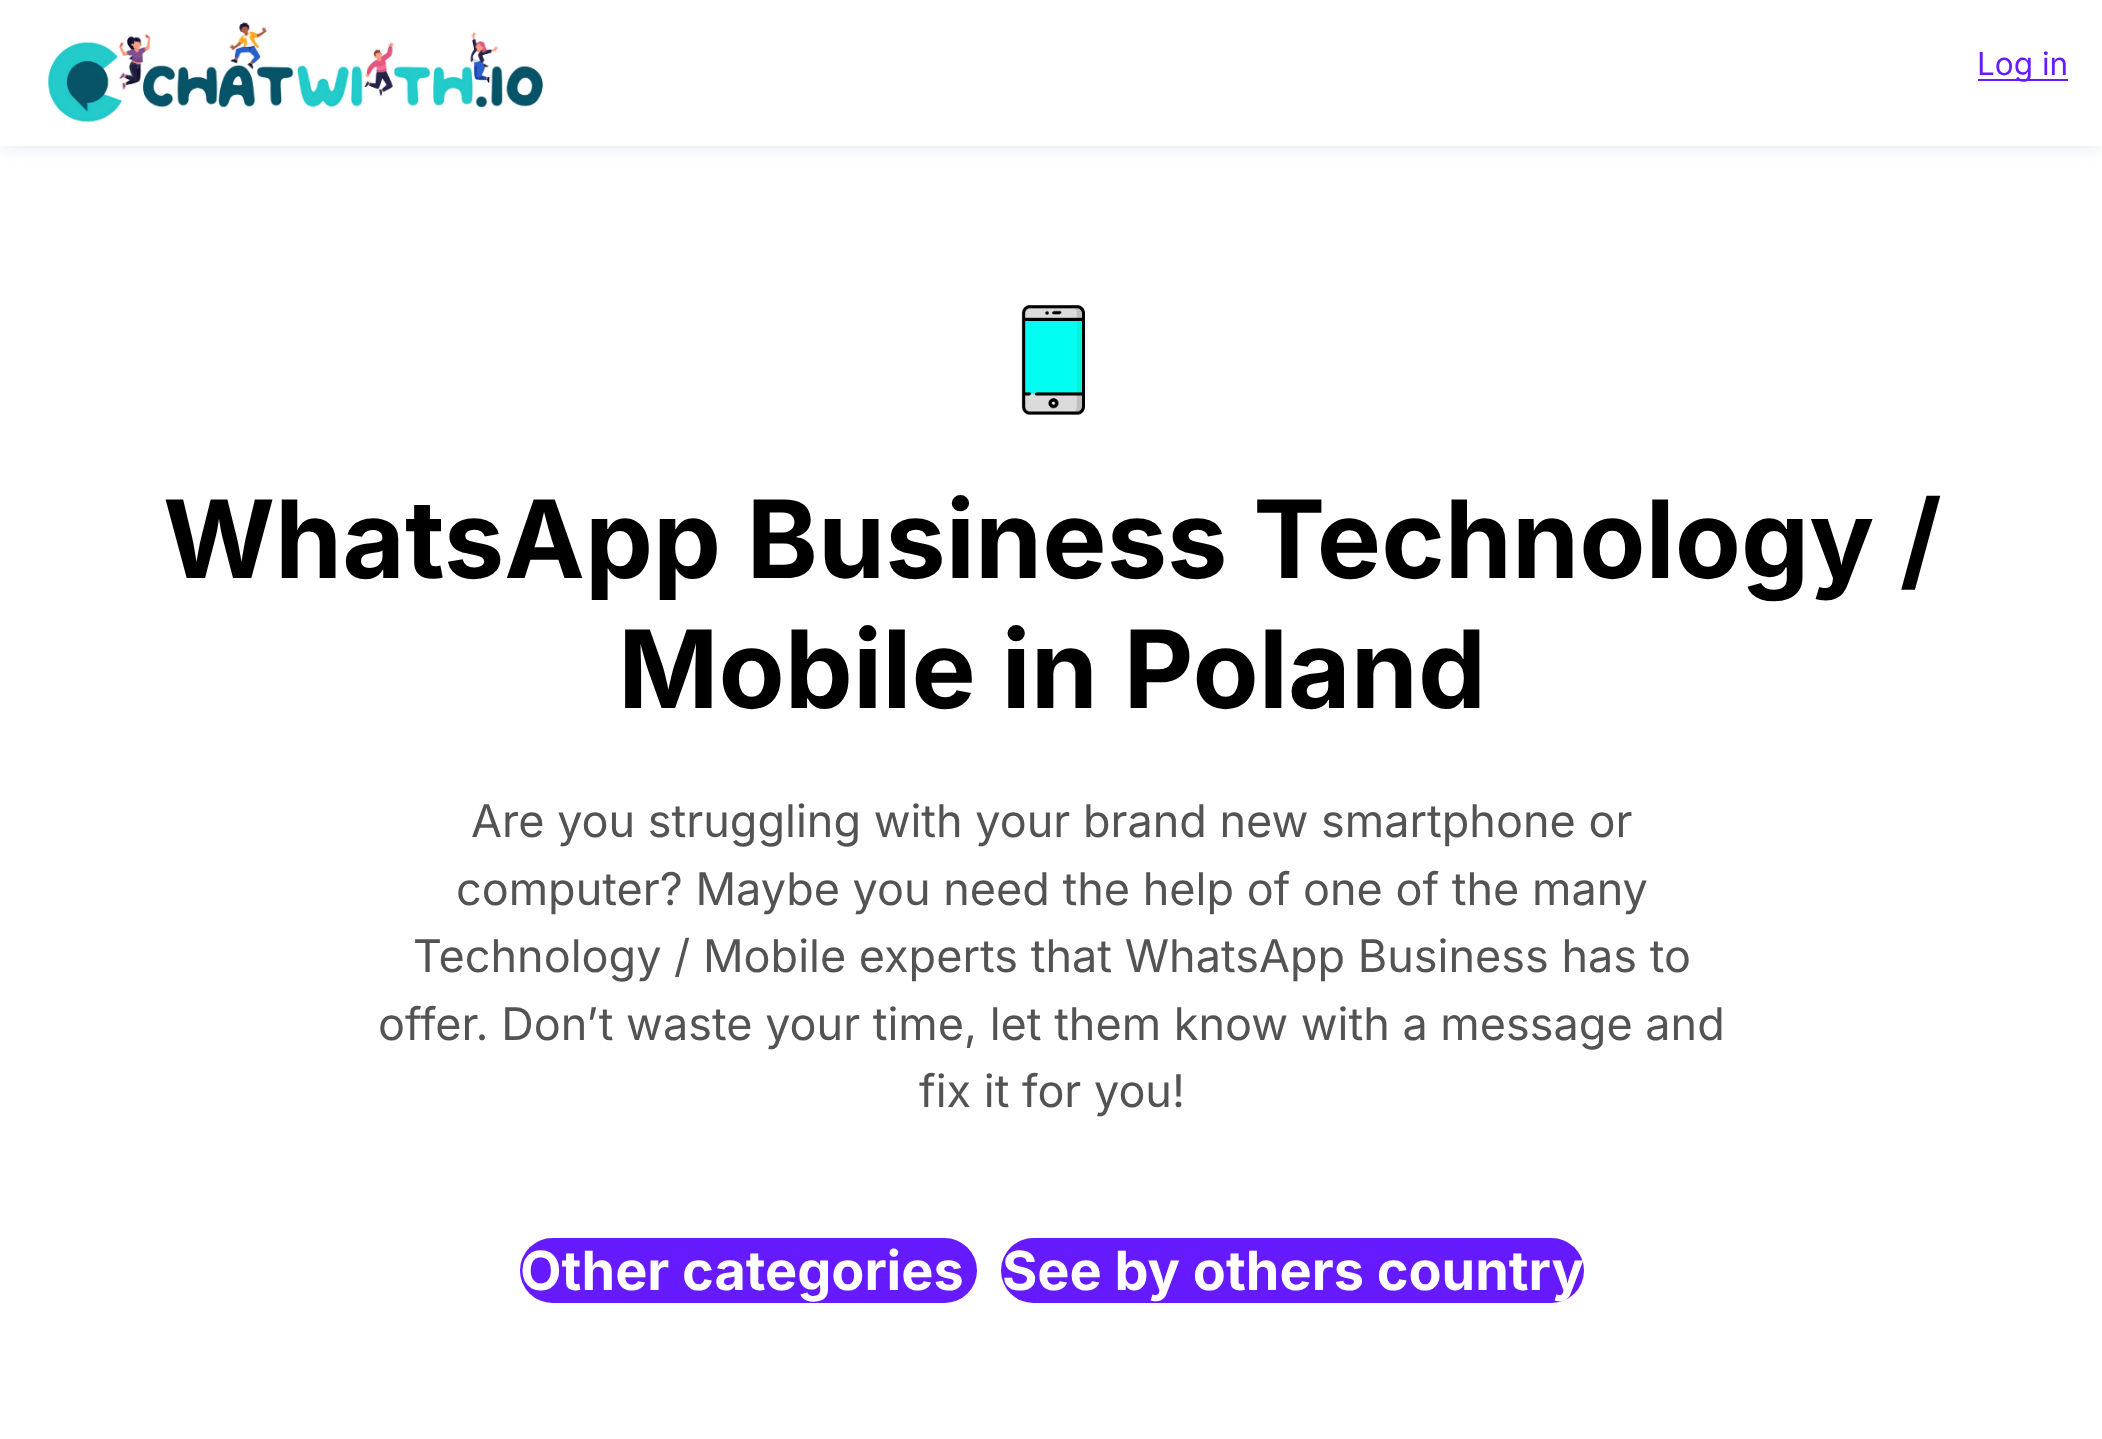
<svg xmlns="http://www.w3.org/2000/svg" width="2102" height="1439">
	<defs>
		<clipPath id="clip1"><rect x="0" y="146" width="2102" height="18" /></clipPath>
	</defs>
	<rect width="100%" height="100%" fill="#FFFFFF" />
	<g clip-path="url(#clip1)">
		<rect x="0" y="0" width="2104" height="146" fill="#E1E5EE" filter="blur(9px)" />
	</g>
	<image x="47" y="22" width="496" height="101" href="assets/img1.png" />
	<rect x="1978" y="79" width="90" height="2" fill="#661AFF" />
	<text x="1977" y="75" font-family="Inter" font-size="31.5" fill="#661AFF">Log in</text>
	<image x="1021" y="305" width="64" height="110" href="assets/img2.png" />
	<g font-family="Inter" font-size="108" font-weight="700" fill="#000000">
		<text x="163" y="578">WhatsApp Business Technology /</text>
		<text x="618" y="708">Mobile in Poland</text>
	</g>
	<g font-family="Inter" font-size="45" fill="#535353">
		<text x="471" y="837">Are you struggling with your brand new smartphone or</text>
		<text x="456" y="905">computer? Maybe you need the help of one of the many</text>
		<text x="413" y="972">Technology / Mobile experts that WhatsApp Business has to</text>
		<text x="378" y="1040">offer. Don’t waste your time, let them know with a message and</text>
		<text x="919" y="1107">fix it for you!</text>
	</g>
	<rect x="520" y="1238" width="457" height="65" rx="32.5" fill="#661AFF" />
	<text x="520" y="1290" font-family="Inter" font-size="54" font-weight="700" fill="#FFFFFF">Other categories</text>
	<rect x="1001" y="1238" width="583" height="65" rx="32.5" fill="#661AFF" />
	<text x="1002" y="1290" font-family="Inter" font-size="54" font-weight="700" fill="#FFFFFF">See by others country</text>
</svg>
